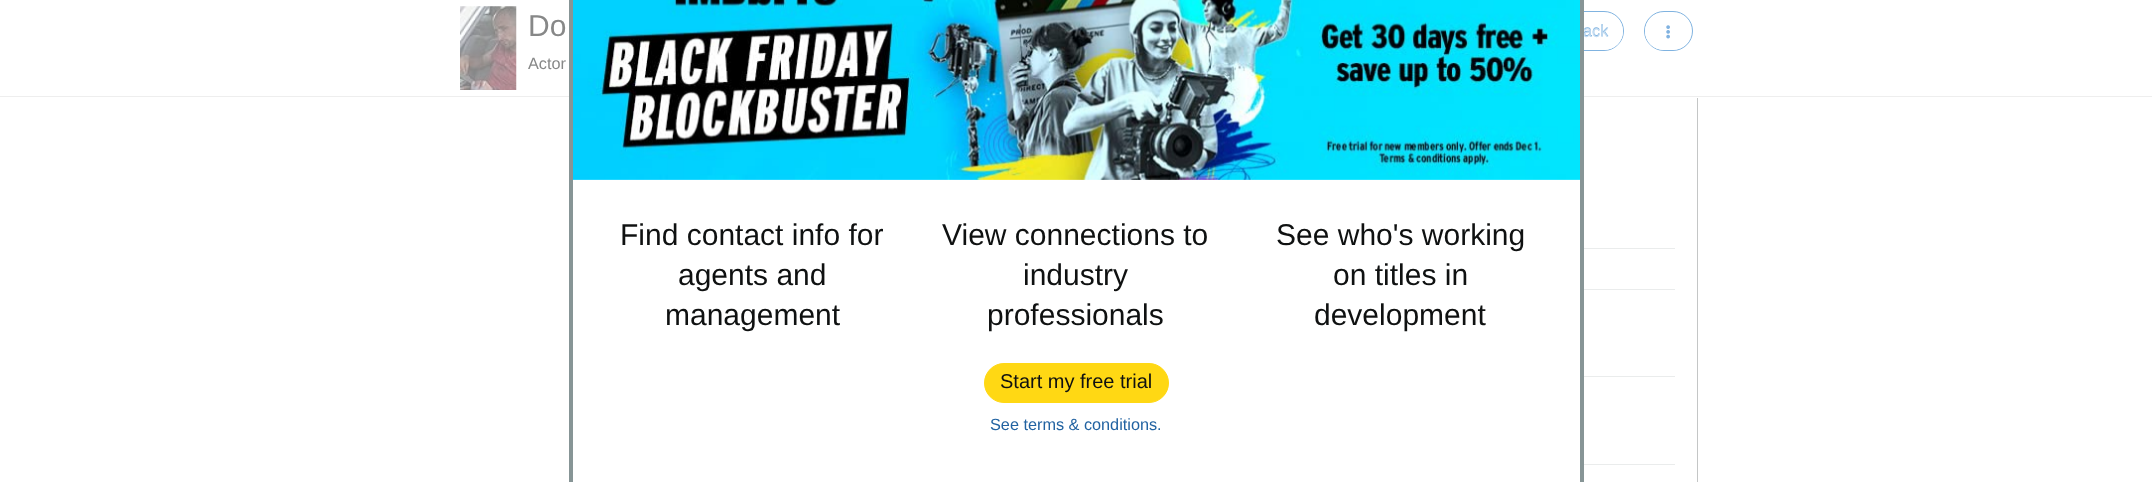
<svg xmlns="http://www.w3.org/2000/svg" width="2152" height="482">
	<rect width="100%" height="100%" fill="#FFFFFF" />
	<rect x="725.5" y="-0.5" width="972" height="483" fill="none" stroke="#C4C6C6" />
	<rect x="1584" y="248" width="91" height="1" fill="#EAECEC" />
	<rect x="1584" y="289" width="91" height="1" fill="#EAECEC" />
	<rect x="1584" y="376" width="91" height="1" fill="#EAECEC" />
	<rect x="1584" y="464" width="91" height="1" fill="#EAECEC" />
	<rect x="725" y="0" width="973" height="98" fill="#FFFFFF" />
	<rect x="0" y="96" width="2152" height="1" fill="#EEEEEE" />
	<image x="460" y="6" width="57" height="84" href="assets/img1.png" />
	<text x="528" y="36" font-family="Liberation Sans" font-size="30" fill="#878888">Do</text>
	<rect x="1551.5" y="11.5" width="72" height="39" rx="19.5" fill="none" stroke="#80B3E0" />
	<rect x="1553" y="13" width="70" height="37" rx="18.5" fill="#FFFFFF" />
	<text x="1583" y="36" font-family="Liberation Sans" font-size="16.25" fill="#80B3E0">ack</text>
	<text x="1583" y="37" font-family="Liberation Sans" font-size="16.25" fill="#C4DCF1">ack</text>
	<rect x="1644.5" y="11.5" width="48" height="39" rx="19.5" fill="none" stroke="#80B3E0" />
	<rect x="1645" y="13" width="46" height="37" rx="18.5" fill="#FFFFFF" />
	<image x="1666" y="25" width="4" height="14" href="assets/img2.png" />
	<text x="528" y="69" font-family="Liberation Sans" font-size="16.25" fill="#878888">Actor</text>
	<rect x="725" y="179" width="1" height="303" fill="#FFFFFF" />
	<rect x="571" y="-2" width="1011" height="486" fill="none" stroke="#879596" stroke-width="4" />
	<image x="573" y="0" width="1007" height="180" href="assets/img3.png" />
	<g font-family="Liberation Sans" font-size="30" fill="#0F1111">
		<text x="620" y="245">Find contact info for</text>
		<text x="678" y="285">agents and</text>
		<text x="665" y="325">management</text>
		<text x="942" y="245">View connections to</text>
		<text x="1023" y="285">industry</text>
		<text x="987" y="325">professionals</text>
		<text x="1276" y="245">See who's working</text>
		<text x="1333" y="285">on titles in</text>
		<text x="1314" y="325">development</text>
	</g>
	<rect x="984.5" y="363.5" width="184" height="39" rx="19.5" fill="#FFD814" stroke="#FFD814" />
	<text x="1000" y="388" font-family="Liberation Sans" font-size="20" fill="#0F1111">Start my free trial</text>
	<text x="990" y="430" font-family="Liberation Sans" font-size="16.25" fill="#2162A1">See terms &amp; conditions.</text>
</svg>
